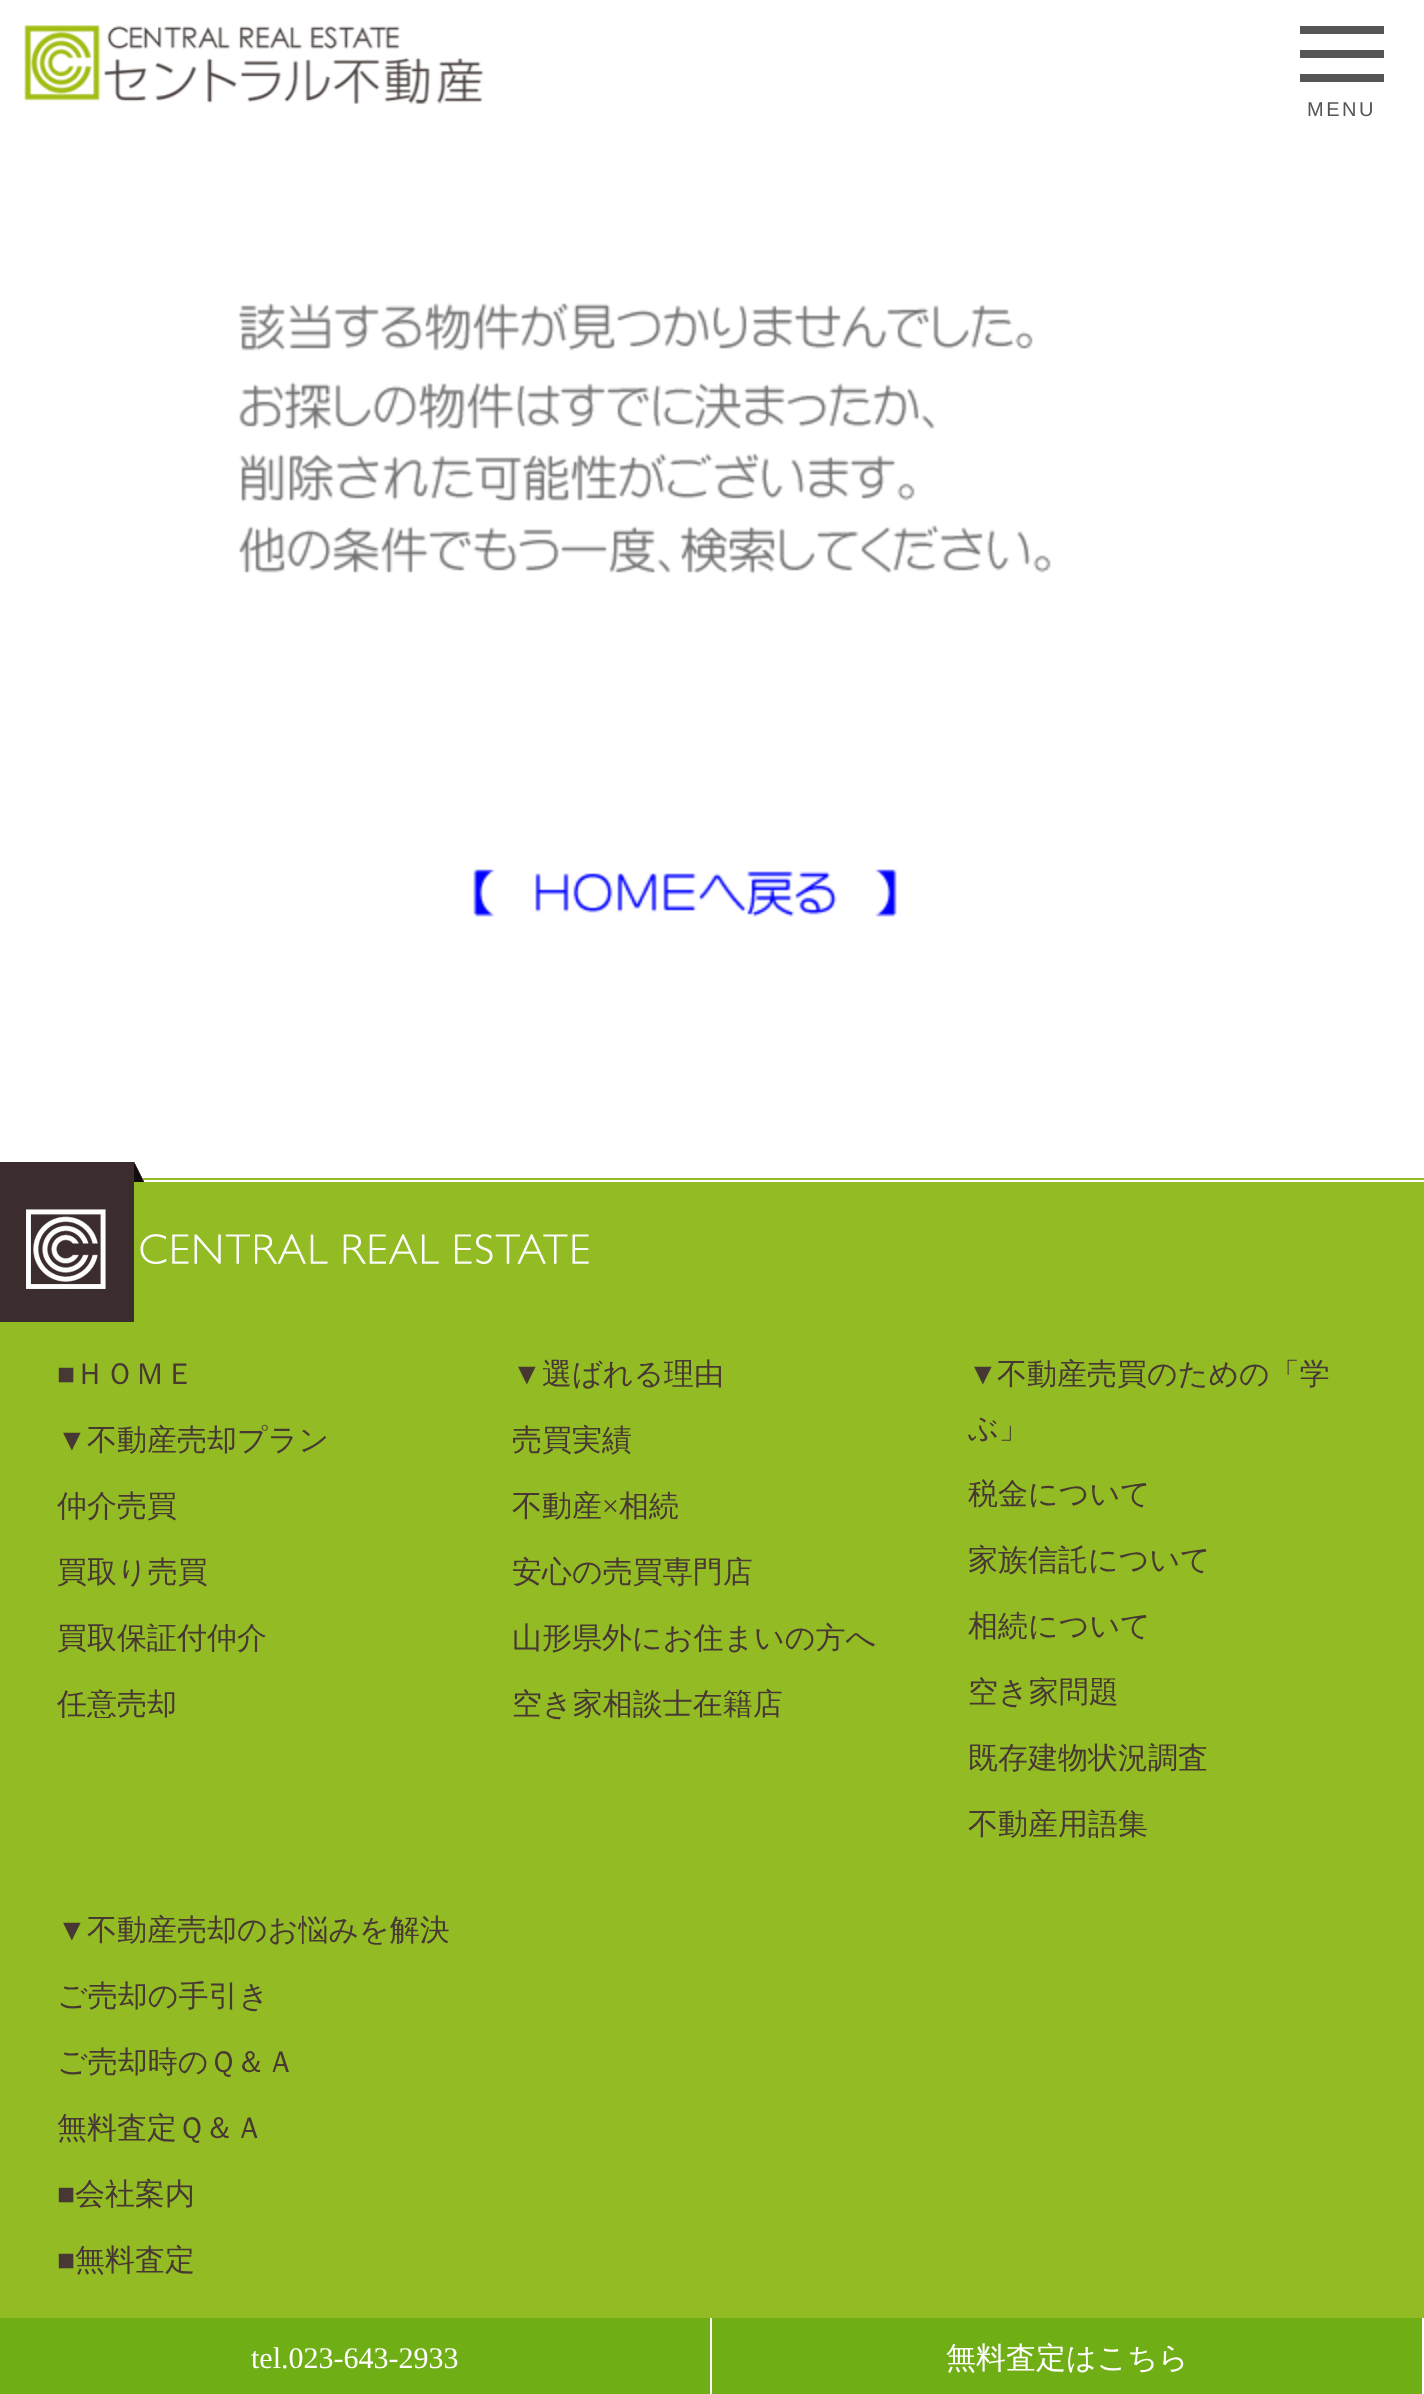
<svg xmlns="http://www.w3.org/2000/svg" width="1424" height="2394">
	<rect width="100%" height="100%" fill="#FFFFFF" />
	<image x="24" y="25" width="460" height="80" href="assets/img1.png" />
	<rect x="1300" y="26" width="84" height="8" fill="#555555" />
	<rect x="1300" y="50" width="84" height="8" fill="#555555" />
	<rect x="1300" y="74" width="84" height="8" fill="#555555" />
	<text x="1307" y="116" font-family="Liberation Sans" font-size="20" letter-spacing="2.5" fill="#555555">MENU</text>
	<image x="238" y="303" width="813" height="614" href="assets/img2.png" />
	<rect x="0" y="1178" width="1424" height="1140" fill="#93BC24" />
	<rect x="144" y="1180" width="1280" height="2" fill="#FFFFFF" />
	<image x="0" y="1162" width="589" height="160" href="assets/img3.png" />
	<text x="57" y="1384" font-family="Liberation Serif" font-size="30" fill="#483834">■</text>
	<text x="75" y="1384" font-family="WenQuanYi Zen Hei" font-size="30" font-weight="500" fill="#483834">ＨＯＭＥ</text>
	<text x="57" y="1450" font-family="Liberation Serif" font-size="30" fill="#483834">▼</text>
	<g font-family="WenQuanYi Zen Hei" font-size="30" font-weight="500" fill="#483834">
		<text x="87" y="1450">不動産売却プラン</text>
		<text x="57" y="1516">仲介売買</text>
		<text x="57" y="1582">買取り売買</text>
		<text x="57" y="1648">買取保証付仲介</text>
		<text x="57" y="1714">任意売却</text>
	</g>
	<text x="512" y="1384" font-family="Liberation Serif" font-size="30" fill="#483834">▼</text>
	<g font-family="WenQuanYi Zen Hei" font-size="30" font-weight="500" fill="#483834">
		<text x="542" y="1384">選ばれる理由</text>
		<text x="512" y="1450">売買実績</text>
		<text x="512" y="1516">不動産</text>
	</g>
	<text x="602" y="1516" font-family="Liberation Serif" font-size="30" fill="#483834">×</text>
	<g font-family="WenQuanYi Zen Hei" font-size="30" font-weight="500" fill="#483834">
		<text x="619" y="1516">相続</text>
		<text x="512" y="1582">安心の売買専門店</text>
		<text x="512" y="1648">山形県外にお住まいの方へ</text>
		<text x="512" y="1714">空き家相談士在籍店</text>
	</g>
	<text x="968" y="1384" font-family="Liberation Serif" font-size="30" fill="#483834">▼</text>
	<g font-family="WenQuanYi Zen Hei" font-size="30" font-weight="500" fill="#483834">
		<text x="997" y="1384">不動産売買のための「学</text>
		<text x="968" y="1438">ぶ」</text>
		<text x="968" y="1504">税金について</text>
		<text x="968" y="1570">家族信託について</text>
		<text x="968" y="1636">相続について</text>
		<text x="968" y="1702">空き家問題</text>
		<text x="968" y="1768">既存建物状況調査</text>
		<text x="968" y="1834">不動産用語集</text>
	</g>
	<text x="57" y="1940" font-family="Liberation Serif" font-size="30" fill="#483834">▼</text>
	<g font-family="WenQuanYi Zen Hei" font-size="30" font-weight="500" fill="#483834">
		<text x="87" y="1940">不動産売却のお悩みを解決</text>
		<text x="57" y="2006">ご売却の手引き</text>
		<text x="57" y="2072">ご売却時のＱ＆Ａ</text>
		<text x="57" y="2138">無料査定Ｑ＆Ａ</text>
	</g>
	<text x="57" y="2204" font-family="Liberation Serif" font-size="30" fill="#483834">■</text>
	<text x="75" y="2204" font-family="WenQuanYi Zen Hei" font-size="30" font-weight="500" fill="#483834">会社案内</text>
	<text x="57" y="2270" font-family="Liberation Serif" font-size="30" fill="#483834">■</text>
	<text x="75" y="2270" font-family="WenQuanYi Zen Hei" font-size="30" font-weight="500" fill="#483834">無料査定</text>
	<rect x="0" y="2318" width="710" height="76" fill="#6FAE14" />
	<text x="251" y="2368" font-family="Liberation Serif" font-size="30" fill="#FFFFFF">tel.023-643-2933</text>
	<rect x="712" y="2318" width="710" height="76" fill="#6FAE14" />
	<text x="946" y="2368" font-family="WenQuanYi Zen Hei" font-size="30" font-weight="500" fill="#FFFFFF">無料査定はこちら</text>
</svg>
